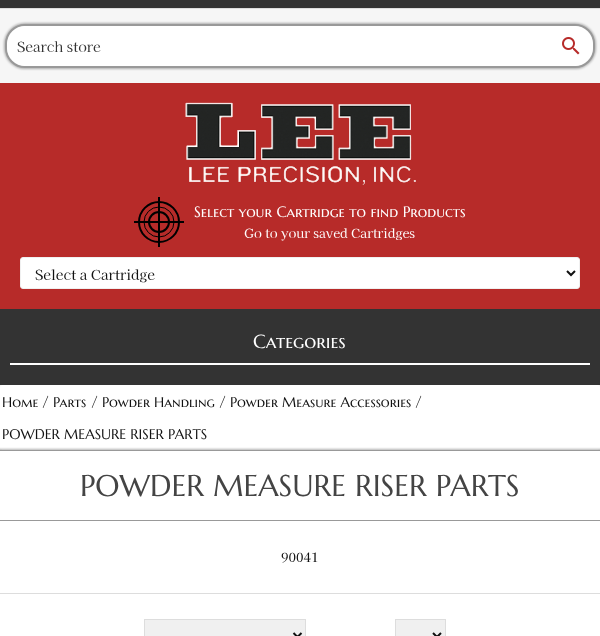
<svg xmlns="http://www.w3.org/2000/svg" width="600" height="636">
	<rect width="100%" height="100%" fill="#F6F6F6" />
	<rect x="0" y="83" width="600" height="226" fill="#B72B29" />
	<rect x="0" y="0" width="600" height="8" fill="#333333" />
	<rect x="0" y="8" width="600" height="1" fill="#DDDDDD" />
	<rect x="4" y="23" width="592" height="46" rx="21" fill="#000000" fill-opacity="0.3" filter="blur(1px)" />
	<rect x="6" y="25" width="588" height="42" rx="19" fill="#FFFFFF" stroke="#999999" stroke-width="2" />
	<path d="M27 26H549V66H27C16 66 7 57 7 46C7 35 16 26 27 26Z" fill="#FFFFFF" />
	<text x="17" y="52" font-family="Kaisei Decol" font-size="14" fill="#333333">Search store</text>
	<path d="M548 26H573C584 26 593 35 593 46C593 57 584 66 573 66H548Z" fill="#FFFFFF" />
	<image x="562" y="37" width="18" height="18" href="assets/img1.png" />
	<image x="185" y="102" width="231" height="83" href="assets/img2.png" />
	<circle cx="159" cy="222" r="20" fill="none" stroke="#000000" stroke-width="2" />
	<circle cx="159" cy="222" r="15" fill="none" stroke="#000000" />
	<circle cx="159" cy="222" r="10" fill="none" stroke="#000000" stroke-width="2" />
	<rect x="158" y="197" width="2" height="50" fill="#000000" />
	<rect x="134" y="221" width="50" height="2" fill="#000000" />
	<text x="194" y="217" font-family="Marcellus SC" font-size="15" fill="#FFFFFF">Select your Cartridge to find Products</text>
	<text x="244" y="238" font-family="Kaisei Decol" font-size="12.75" fill="#FFFFFF">Go to your saved Cartridges</text>
	<rect x="20.5" y="257.5" width="559" height="31" rx="2.5" fill="#FFFFFF" stroke="#F0F0F0" />
	<path d="M567 271L571 275L575 271" fill="none" stroke="#111111" stroke-width="2" />
	<text x="35" y="280" font-family="Kaisei Decol" font-size="14" fill="#111111">Select a Cartridge</text>
	<rect x="0" y="309" width="600" height="76" fill="#333333" />
	<rect x="10" y="363" width="580" height="2" fill="#FFFFFF" />
	<text x="253" y="348" font-family="Marcellus SC" font-size="19" fill="#FFFFFF">Categories</text>
	<rect x="0" y="385" width="600" height="65" rx="3" fill="#FFFFFF" />
	<text x="2" y="407" font-family="Marcellus SC" font-size="14" fill="#111111">Home</text>
	<text x="42" y="407" font-family="Kaisei Decol" font-size="14" fill="#111111">/</text>
	<text x="53" y="407" font-family="Marcellus SC" font-size="14" fill="#111111">Parts</text>
	<text x="91" y="407" font-family="Kaisei Decol" font-size="14" fill="#111111">/</text>
	<text x="102" y="407" font-family="Marcellus SC" font-size="14" fill="#111111">Powder Handling</text>
	<text x="219" y="407" font-family="Kaisei Decol" font-size="14" fill="#111111">/</text>
	<text x="230" y="407" font-family="Marcellus SC" font-size="14" fill="#111111">Powder Measure Accessories</text>
	<text x="415" y="407" font-family="Kaisei Decol" font-size="14" fill="#111111">/</text>
	<text x="2" y="439" font-family="Marcellus SC" font-size="14" fill="#111111">POWDER MEASURE RISER PARTS</text>
	<rect x="-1" y="449" width="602" height="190" fill="#000000" fill-opacity="0.3" filter="blur(1px)" />
	<rect x="0" y="451" width="600" height="185" fill="#FFFFFF" />
	<rect x="0" y="450" width="600" height="1" fill="#999999" />
	<rect x="0" y="520" width="600" height="1" fill="#999999" />
	<text x="80" y="496" font-family="Marcellus SC" font-size="30" fill="#444444">POWDER MEASURE RISER PARTS</text>
	<text x="281" y="562" font-family="Kaisei Decol" font-size="12.75" fill="#111111">90041</text>
	<rect x="0" y="593" width="600" height="1" fill="#DDDDDD" />
	<rect x="144.5" y="619.5" width="161" height="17" fill="#F0F0F0" stroke="#DDDDDD" />
	<path d="M293.5 633L297.5 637L301.5 633" fill="none" stroke="#111111" stroke-width="2" />
	<rect x="395.5" y="619.5" width="50" height="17" fill="#F0F0F0" stroke="#DDDDDD" />
	<path d="M433 633L437 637L441 633" fill="none" stroke="#111111" stroke-width="2" />
</svg>
